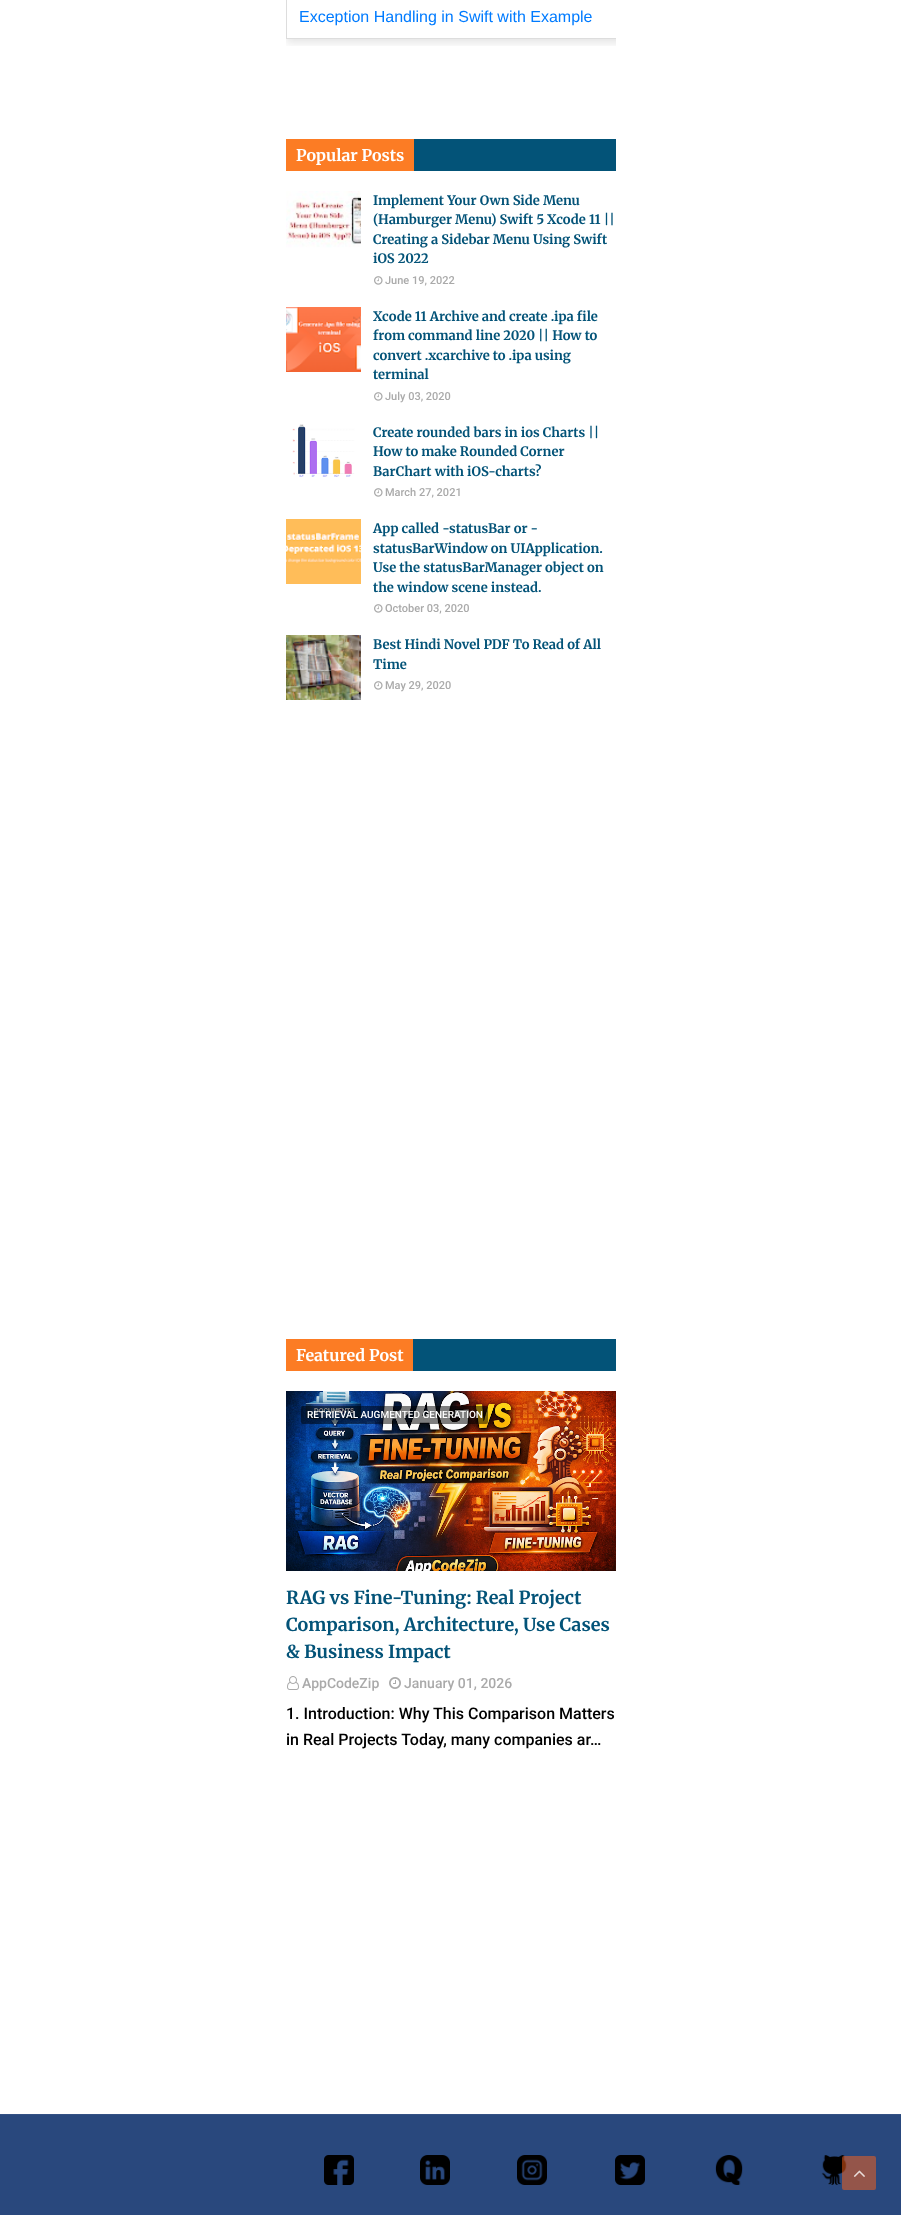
<svg xmlns="http://www.w3.org/2000/svg" width="901" height="2215">
	<defs>
		<clipPath id="clip1"><rect x="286" y="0" width="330" height="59" /></clipPath>
		<clipPath id="clip2"><rect x="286" y="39" width="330" height="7" /></clipPath>
		<clipPath id="clip3"><rect x="373" y="191" width="243" height="96" /></clipPath>
		<clipPath id="clip4"><rect x="373" y="423" width="243" height="76" /></clipPath>
		<clipPath id="clip5"><rect x="373" y="635" width="243" height="57" /></clipPath>
		<clipPath id="clip6"><rect x="286" y="1584" width="330" height="81" /></clipPath>
	</defs>
	<rect width="100%" height="100%" fill="#FFFFFF" />
	<g clip-path="url(#clip1)">
		<g clip-path="url(#clip2)">
			<rect x="286" y="-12" width="600" height="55" fill="#000000" fill-opacity="0.1" filter="blur(4px)" />
		</g>
	</g>
	<rect x="286" y="38" width="330" height="1" fill="#DDDDDD" />
	<rect x="286" y="0" width="1" height="39" fill="#DDDDDD" />
	<text x="299" y="22" font-family="Liberation Sans" font-size="16" fill="#007BFF">Exception Handling in Swift with Example</text>
	<rect x="414" y="139" width="202" height="32" fill="#035378" />
	<rect x="286" y="139" width="128" height="32" fill="#FC7C24" />
	<text x="296" y="161" font-family="Merriweather" font-size="16" font-weight="700" fill="#FFFFFF">Popular Posts</text>
	<image x="286" y="191" width="75" height="65" href="assets/img1.png" />
	<g font-family="Merriweather" font-size="13" font-weight="700" fill="#035378">
		<text x="373" y="205">Implement Your Own Side Menu</text>
		<text x="373" y="224">(Hamburger Menu) Swift 5 Xcode 11 ||</text>
	</g>
	<g clip-path="url(#clip3)">
		<text x="373" y="244" font-family="Merriweather" font-size="13" font-weight="700" fill="#035378">Creating a Sidebar Menu Using Swift</text>
	</g>
	<text x="373" y="263" font-family="Merriweather" font-size="13" font-weight="700" fill="#035378">iOS 2022</text>
	<image x="374" y="276" width="9" height="9" href="assets/img2.png" />
	<text x="385" y="284" font-family="Roboto" font-size="11" font-weight="500" fill="#AAAAAA">June 19, 2022</text>
	<image x="286" y="307" width="75" height="65" href="assets/img3.png" />
	<g font-family="Merriweather" font-size="13" font-weight="700" fill="#035378">
		<text x="373" y="321">Xcode 11 Archive and create .ipa file</text>
		<text x="373" y="340">from command line 2020 || How to</text>
		<text x="373" y="360">convert .xcarchive to .ipa using</text>
		<text x="373" y="379">terminal</text>
	</g>
	<image x="374" y="392" width="9" height="9" href="assets/img2.png" />
	<text x="385" y="400" font-family="Roboto" font-size="11" font-weight="500" fill="#AAAAAA">July 03, 2020</text>
	<image x="286" y="423" width="75" height="65" href="assets/img4.png" />
	<g clip-path="url(#clip4)">
		<text x="373" y="437" font-family="Merriweather" font-size="13" font-weight="700" fill="#035378">Create rounded bars in ios Charts ||</text>
	</g>
	<g font-family="Merriweather" font-size="13" font-weight="700" fill="#035378">
		<text x="373" y="456">How to make Rounded Corner</text>
		<text x="373" y="476">BarChart with iOS-charts?</text>
	</g>
	<image x="374" y="488" width="9" height="9" href="assets/img2.png" />
	<text x="385" y="496" font-family="Roboto" font-size="11" font-weight="500" fill="#AAAAAA">March 27, 2021</text>
	<image x="286" y="519" width="75" height="65" href="assets/img5.png" />
	<g font-family="Merriweather" font-size="13" font-weight="700" fill="#035378">
		<text x="373" y="533">App called -statusBar or -</text>
		<text x="373" y="553">statusBarWindow on UIApplication.</text>
		<text x="373" y="572">Use the statusBarManager object on</text>
		<text x="373" y="592">the window scene instead.</text>
	</g>
	<image x="374" y="604" width="9" height="9" href="assets/img2.png" />
	<text x="385" y="612" font-family="Roboto" font-size="11" font-weight="500" fill="#AAAAAA">October 03, 2020</text>
	<image x="286" y="635" width="75" height="65" href="assets/img6.png" />
	<text x="373" y="649" font-family="Merriweather" font-size="13" font-weight="700" fill="#035378">Best Hindi Novel PDF To Read of All</text>
	<g clip-path="url(#clip5)">
		<text x="373" y="669" font-family="Merriweather" font-size="13" font-weight="700" fill="#035378">Time</text>
	</g>
	<image x="374" y="681" width="9" height="9" href="assets/img2.png" />
	<text x="385" y="689" font-family="Roboto" font-size="11" font-weight="500" fill="#AAAAAA">May 29, 2020</text>
	<rect x="413" y="1339" width="203" height="32" fill="#035378" />
	<rect x="286" y="1339" width="127" height="32" fill="#FC7C24" />
	<text x="296" y="1361" font-family="Merriweather" font-size="16" font-weight="700" fill="#FFFFFF">Featured Post</text>
	<image x="286" y="1391" width="330" height="180" href="assets/img7.png" />
	<rect x="301" y="1406" width="187" height="18" rx="2" fill="#000000" fill-opacity="0.5" />
	<text x="307" y="1418" font-family="Roboto" font-size="10" font-weight="500" fill="#FFFFFF">RETRIEVAL AUGMENTED GENERATION</text>
	<text x="286" y="1604" font-family="Merriweather" font-size="18" font-weight="700" fill="#035378">RAG vs Fine-Tuning: Real Project</text>
	<g clip-path="url(#clip6)">
		<text x="286" y="1631" font-family="Merriweather" font-size="18" font-weight="700" fill="#035378">Comparison, Architecture, Use Cases</text>
	</g>
	<text x="286" y="1658" font-family="Merriweather" font-size="18" font-weight="700" fill="#035378">&amp; Business Impact</text>
	<image x="287" y="1676" width="12" height="14" href="assets/img8.png" />
	<text x="302" y="1688" font-family="Roboto" font-size="14" font-weight="500" fill="#AAAAAA">AppCodeZip</text>
	<image x="389" y="1677" width="12" height="12" href="assets/img9.png" />
	<text x="404" y="1688" font-family="Roboto" font-size="14" font-weight="500" fill="#AAAAAA">January 01, 2026</text>
	<g font-family="Roboto" font-size="16" font-weight="500" fill="#000000">
		<text x="286" y="1719">1. Introduction: Why This Comparison Matters</text>
		<text x="286" y="1745">in Real Projects Today, many companies ar…</text>
	</g>
	<rect x="0" y="2115" width="901" height="100" fill="#29487D" />
	<rect x="0" y="2114" width="901" height="1" fill="#345184" />
	<image x="324" y="2155" width="30" height="30" href="assets/img10.png" />
	<image x="420" y="2155" width="30" height="30" href="assets/img11.png" />
	<image x="517" y="2155" width="30" height="30" href="assets/img12.png" />
	<image x="615" y="2155" width="30" height="30" href="assets/img13.png" />
	<image x="715" y="2155" width="28" height="30" href="assets/img14.png" />
	<image x="821" y="2155" width="26" height="30" href="assets/img15.png" />
	<rect x="842" y="2156" width="34" height="34" rx="2" fill="#FF6118" fill-opacity="0.5" />
	<image x="853" y="2170" width="12" height="7" href="assets/img16.png" />
</svg>
